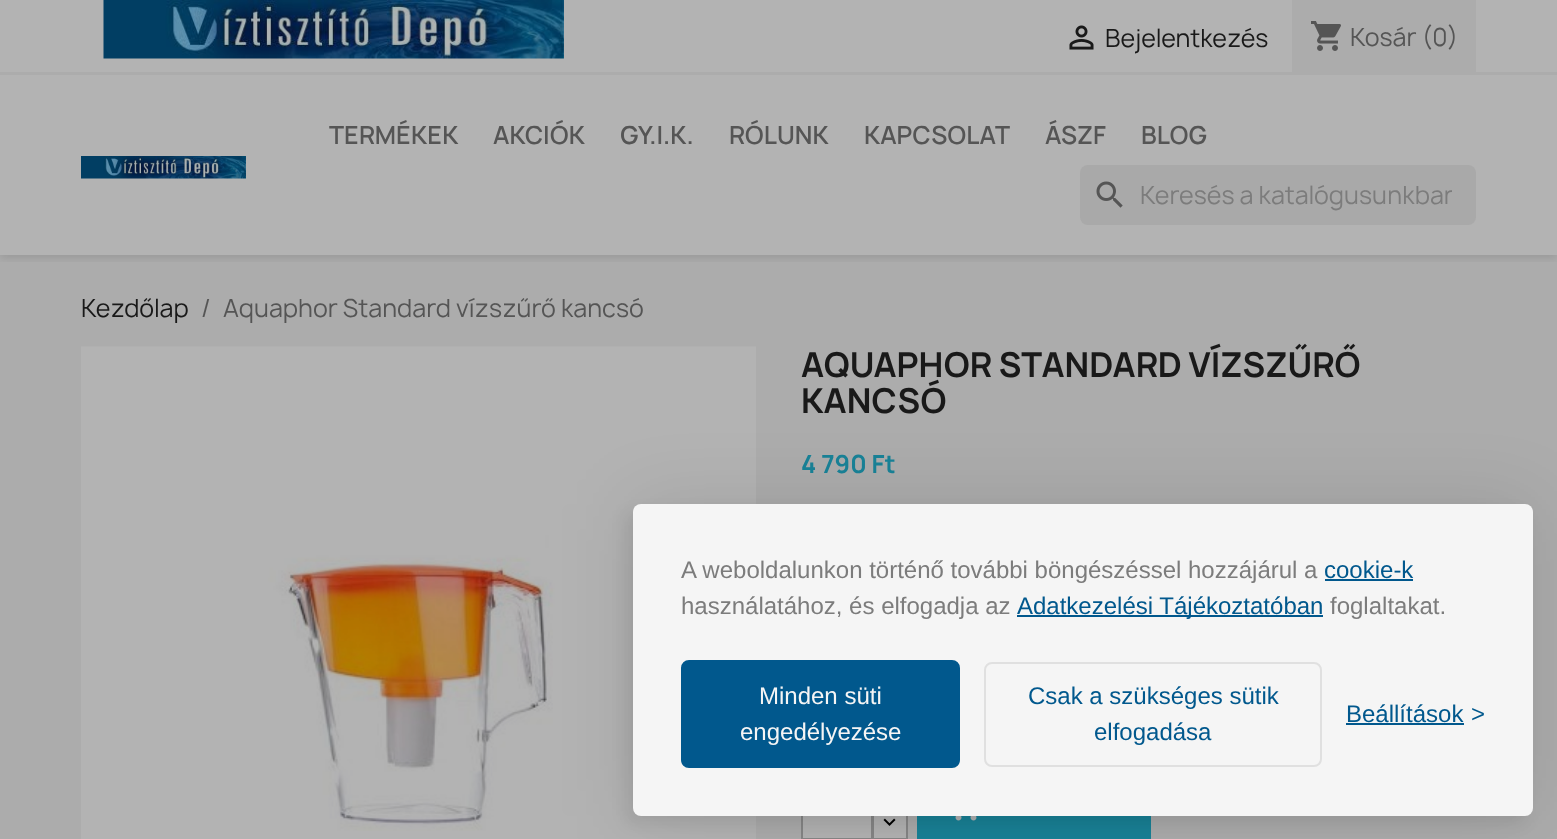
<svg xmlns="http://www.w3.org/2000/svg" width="1557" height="839">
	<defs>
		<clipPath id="clip1"><rect x="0" y="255" width="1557" height="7" /></clipPath>
		<clipPath id="clip2"><rect x="1140" y="176" width="312" height="40" /></clipPath>
	</defs>
	<rect width="100%" height="100%" fill="#B3B3B3" />
	<rect x="0" y="255" width="1557" height="584" fill="#ACACAC" />
	<g clip-path="url(#clip1)">
		<rect x="0" y="3" width="1557" height="255" fill="#000000" fill-opacity="0.11" filter="blur(4px)" />
	</g>
	<rect x="0" y="72" width="1557" height="3" fill="#ACACAC" />
	<image x="103" y="0" width="461" height="59" href="assets/img1.png" />
	<image x="1069" y="25" width="25" height="25" href="assets/img2.png" />
	<text x="1105" y="47" font-family="Manrope" font-size="24" fill="#191919">Bejelentkezés</text>
	<rect x="1292" y="0" width="184" height="72" fill="#ACACAC" />
	<image x="1311" y="21" width="30" height="30" href="assets/img3.png" />
	<text x="1350" y="46" font-family="Manrope" font-size="24" fill="#555555">Kosár (0)</text>
	<image x="81" y="156" width="165" height="23" href="assets/img4.png" />
	<g font-family="Manrope" font-size="24" font-weight="600" fill="#555555">
		<text x="329" y="144">TERMÉKEK</text>
		<text x="493" y="144">AKCIÓK</text>
		<text x="620" y="144">GY.I.K.</text>
		<text x="729" y="144">RÓLUNK</text>
		<text x="864" y="144">KAPCSOLAT</text>
		<text x="1045" y="144">ÁSZF</text>
		<text x="1141" y="144">BLOG</text>
	</g>
	<rect x="1080" y="165" width="396" height="60" rx="8" fill="#A9A9A9" />
	<image x="1096" y="181" width="27" height="27" href="assets/img5.png" />
	<g clip-path="url(#clip2)">
		<text x="1140" y="204" font-family="Manrope" font-size="24" fill="#7C7C7C">Keresés a katalógusunkban</text>
	</g>
	<text x="81" y="317" font-family="Manrope" font-size="24" fill="#191919">Kezdőlap</text>
	<g font-family="Manrope" font-size="24" fill="#555555">
		<text x="201" y="317">/</text>
		<text x="223" y="317">Aquaphor Standard vízszűrő kancsó</text>
	</g>
	<image x="81" y="346" width="675" height="485" href="assets/img6.png" />
	<rect x="81" y="831" width="675" height="8" fill="#B3B3B3" />
	<g font-family="Manrope" font-size="33" font-weight="700" fill="#191919">
		<text x="801" y="377">AQUAPHOR STANDARD VÍZSZŰRŐ</text>
		<text x="801" y="413">KANCSÓ</text>
	</g>
	<text x="801" y="473" font-family="Manrope" font-size="24" font-weight="700" fill="#198297">4 790 Ft</text>
	<rect x="803" y="816" width="68" height="22" fill="#B3B3B3" />
	<rect x="874" y="816" width="32" height="22" fill="#B3B3B3" />
	<rect x="873" y="807" width="34" height="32" fill="none" stroke="#868686" stroke-width="2" />
	<rect x="802" y="775" width="70" height="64" fill="none" stroke="#868686" stroke-width="2" />
	<image x="883" y="818" width="13" height="8" href="assets/img7.png" />
	<rect x="917" y="816" width="234" height="23" fill="#198297" />
	<image x="955" y="816" width="22" height="5" href="assets/img8.png" />
	<rect x="633" y="504" width="900" height="312" rx="8" fill="#000000" fill-opacity="0.1" filter="blur(37.5px)" />
	<rect x="626" y="512" width="900" height="312" rx="8" fill="#000000" fill-opacity="0.07" filter="blur(7.5px)" />
	<rect x="633" y="504" width="900" height="312" rx="8" fill="#F5F5F5" />
	<text x="681" y="578" font-family="Liberation Sans" font-size="24" fill="#7C7C7C">A weboldalunkon történő további böngészéssel hozzájárul a</text>
	<text x="1324" y="578" font-family="Liberation Sans" font-size="24" fill="#01588D">cookie-k</text>
	<rect x="1325" y="579" width="88" height="2" fill="#01588D" />
	<text x="681" y="614" font-family="Liberation Sans" font-size="24" fill="#7C7C7C">használatához, és elfogadja az</text>
	<rect x="1017" y="615" width="306" height="2" fill="#01588D" />
	<text x="1017" y="614" font-family="Liberation Sans" font-size="24" fill="#01588D">Adatkezelési Tájékoztatóban</text>
	<text x="1330" y="614" font-family="Liberation Sans" font-size="24" fill="#7C7C7C">foglaltakat.</text>
	<rect x="682.5" y="661.5" width="276" height="105" rx="6.5" fill="#01588D" stroke="#01588D" stroke-width="3" />
	<g font-family="Liberation Sans" font-size="24" fill="#F5F5F5">
		<text x="759" y="704">Minden süti</text>
		<text x="740" y="740">engedélyezése</text>
	</g>
	<rect x="985" y="663" width="336" height="103" rx="7" fill="none" stroke="#E0E0E0" stroke-width="2" />
	<g font-family="Liberation Sans" font-size="24" fill="#01588D">
		<text x="1028" y="704">Csak a szükséges sütik</text>
		<text x="1094" y="740">elfogadása</text>
		<text x="1346" y="722">Beállítások</text>
	</g>
	<rect x="1346" y="723" width="118" height="2" fill="#01588D" />
	<text x="1471" y="722" font-family="Liberation Sans" font-size="24" fill="#01588D">&gt;</text>
</svg>
